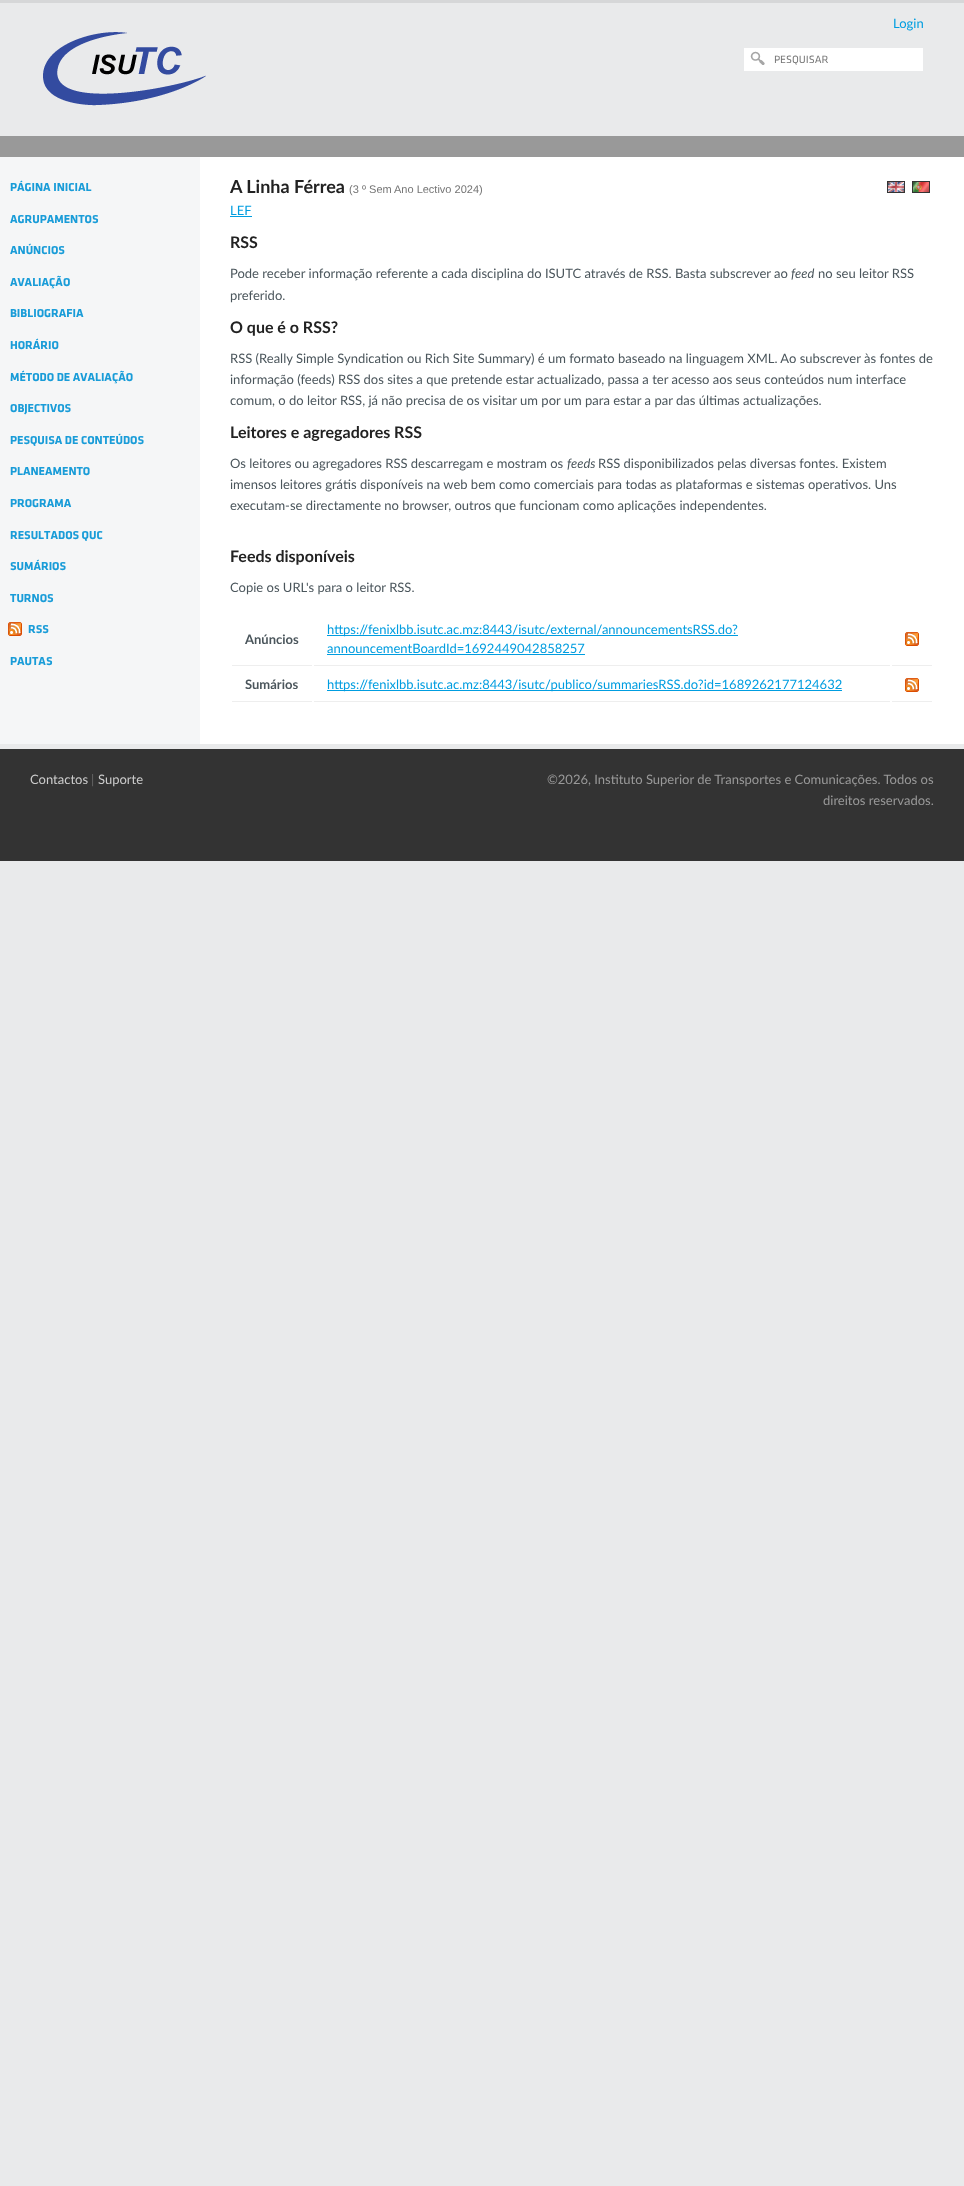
<svg xmlns="http://www.w3.org/2000/svg" width="964" height="2186">
	<rect width="100%" height="100%" fill="#E9EAEB" />
	<rect x="0" y="0" width="964" height="3" fill="#D6D7D8" />
	<text x="893" y="28" font-family="Lato" font-size="13" fill="#009DE0">Login</text>
	<image x="43" y="32" width="163" height="74" href="assets/img1.png" />
	<rect x="744" y="48" width="179" height="23" fill="#FFFFFF" />
	<image x="750" y="51" width="15" height="14" href="assets/img2.png" />
	<text x="774" y="63" font-family="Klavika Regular" font-size="11" fill="#757575">PESQUISAR</text>
	<rect x="0" y="136" width="964" height="21" fill="#999999" />
	<rect x="200" y="157" width="764" height="587" fill="#FFFFFF" />
	<rect x="0" y="157" width="200" height="587" fill="#F5F6F7" />
	<g font-family="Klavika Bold" font-size="12" font-weight="700" fill="#199CD8">
		<text x="10" y="191">PÁGINA INICIAL</text>
		<text x="10" y="223">AGRUPAMENTOS</text>
		<text x="10" y="254">ANÚNCIOS</text>
		<text x="10" y="286">AVALIAÇÃO</text>
		<text x="10" y="317">BIBLIOGRAFIA</text>
		<text x="10" y="349">HORÁRIO</text>
		<text x="10" y="381">MÉTODO DE AVALIAÇÃO</text>
		<text x="10" y="412">OBJECTIVOS</text>
		<text x="10" y="444">PESQUISA DE CONTEÚDOS</text>
		<text x="10" y="475">PLANEAMENTO</text>
		<text x="10" y="507">PROGRAMA</text>
		<text x="10" y="539">RESULTADOS QUC</text>
		<text x="10" y="570">SUMÁRIOS</text>
		<text x="10" y="602">TURNOS</text>
	</g>
	<image x="8" y="622" width="14" height="14" href="assets/img3.png" />
	<g font-family="Klavika Bold" font-size="12" font-weight="700" fill="#199CD8">
		<text x="28" y="633">RSS</text>
		<text x="10" y="665">PAUTAS</text>
	</g>
	<text x="230" y="193" font-family="Lato" font-size="18" font-weight="700" fill="#222222">A Linha Férrea</text>
	<g font-family="Liberation Sans" font-size="11" fill="#757575">
		<text x="349" y="193">(3</text>
		<text x="362" y="193">º Sem</text>
		<text x="394" y="193">Ano Lectivo 2024)</text>
	</g>
	<image x="887" y="181" width="18" height="12" href="assets/img4.png" />
	<image x="912" y="181" width="18" height="12" href="assets/img5.png" />
	<text x="230" y="215" font-family="Lato" font-size="13" fill="#009DE0">LEF</text>
	<rect x="230" y="216" width="22" height="1" fill="#009DE0" />
	<text x="230" y="248" font-family="Lato" font-size="16" font-weight="700" fill="#222222">RSS</text>
	<text x="230" y="278" font-family="Lato" font-size="13" fill="#4B565C">Pode receber informação referente a cada disciplina do ISUTC através de RSS. Basta subscrever ao</text>
	<text x="791" y="278" font-family="Lato" font-size="13" font-style="italic" fill="#4B565C">feed</text>
	<g font-family="Lato" font-size="13" fill="#4B565C">
		<text x="818" y="278">no seu leitor RSS</text>
		<text x="230" y="300">preferido.</text>
	</g>
	<text x="230" y="333" font-family="Lato" font-size="16" font-weight="700" fill="#222222">O que é o RSS?</text>
	<g font-family="Lato" font-size="13" fill="#4B565C">
		<text x="230" y="363">RSS (Really Simple Syndication ou Rich Site Summary) é um formato baseado na linguagem XML. Ao subscrever às fontes de</text>
		<text x="230" y="384">informação (feeds) RSS dos sites a que pretende estar actualizado, passa a ter acesso aos seus conteúdos num interface</text>
		<text x="230" y="405">comum, o do leitor RSS, já não precisa de os visitar um por um para estar a par das últimas actualizações.</text>
	</g>
	<text x="230" y="438" font-family="Lato" font-size="16" font-weight="700" fill="#222222">Leitores e agregadores RSS</text>
	<text x="230" y="468" font-family="Lato" font-size="13" fill="#4B565C">Os leitores ou agregadores RSS descarregam e mostram os</text>
	<text x="567" y="468" font-family="Lato" font-size="13" font-style="italic" fill="#4B565C">feeds</text>
	<g font-family="Lato" font-size="13" fill="#4B565C">
		<text x="598" y="468">RSS disponibilizados pelas diversas fontes. Existem</text>
		<text x="230" y="489">imensos leitores grátis disponíveis na web bem como comerciais para todas as plataformas e sistemas operativos. Uns</text>
		<text x="230" y="510">executam-se directamente no browser, outros que funcionam como aplicações independentes.</text>
	</g>
	<text x="230" y="562" font-family="Lato" font-size="16" font-weight="700" fill="#222222">Feeds disponíveis</text>
	<text x="230" y="592" font-family="Lato" font-size="13" fill="#4B565C">Copie os URL's para o leitor RSS.</text>
	<rect x="232" y="665" width="80" height="1" fill="#EEEEEE" />
	<text x="245" y="644" font-family="Lato" font-size="13" font-weight="700" fill="#4B565C">Anúncios</text>
	<rect x="314" y="665" width="576" height="1" fill="#EEEEEE" />
	<rect x="327" y="635" width="411" height="1" fill="#009DE0" />
	<g font-family="Lato" font-size="13" fill="#009DE0">
		<text x="327" y="634">https://fenixlbb.isutc.ac.mz:8443/isutc/external/announcementsRSS.do?</text>
		<text x="327" y="653">announcementBoardId=1692449042858257</text>
	</g>
	<rect x="327" y="654" width="258" height="1" fill="#009DE0" />
	<rect x="892" y="665" width="40" height="1" fill="#EEEEEE" />
	<image x="905" y="632" width="14" height="14" href="assets/img6.png" />
	<rect x="232" y="701" width="80" height="1" fill="#EEEEEE" />
	<text x="245" y="689" font-family="Lato" font-size="13" font-weight="700" fill="#4B565C">Sumários</text>
	<rect x="314" y="701" width="576" height="1" fill="#EEEEEE" />
	<rect x="327" y="690" width="515" height="1" fill="#009DE0" />
	<text x="327" y="689" font-family="Lato" font-size="13" fill="#009DE0">https://fenixlbb.isutc.ac.mz:8443/isutc/publico/summariesRSS.do?id=1689262177124632</text>
	<rect x="892" y="701" width="40" height="1" fill="#EEEEEE" />
	<image x="905" y="678" width="14" height="14" href="assets/img6.png" />
	<rect x="0" y="749" width="964" height="112" fill="#333333" />
	<text x="30" y="784" font-family="Lato" font-size="13" fill="#CCCCCC">Contactos</text>
	<text x="91" y="784" font-family="Lato" font-size="13" fill="#666666">|</text>
	<text x="98" y="784" font-family="Lato" font-size="13" fill="#CCCCCC">Suporte</text>
	<g font-family="Lato" font-size="13" fill="#999999">
		<text x="547" y="784">©2026, Instituto Superior de Transportes e Comunicações. Todos os</text>
		<text x="823" y="805">direitos reservados.</text>
	</g>
</svg>
